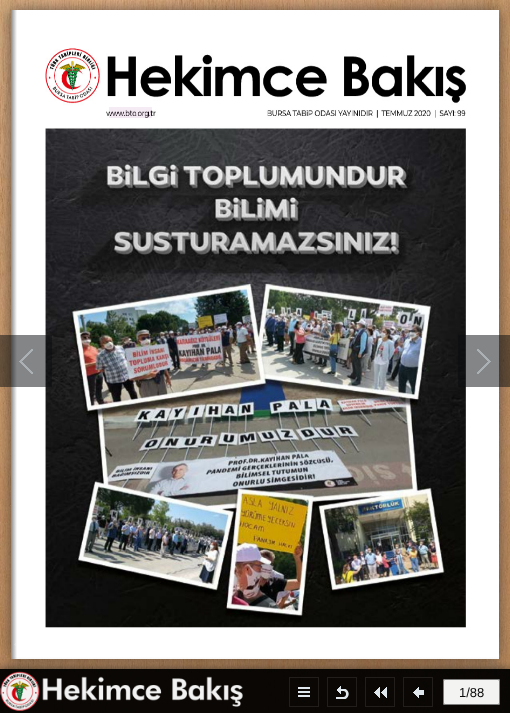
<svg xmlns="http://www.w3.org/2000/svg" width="510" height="713">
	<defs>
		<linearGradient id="g1" gradientUnits="userSpaceOnUse" x1="11" y1="335" x2="17" y2="335"><stop offset="0" stop-color="#8A8A8A" /><stop offset="1" stop-color="#FFFFFF" /></linearGradient>
		<clipPath id="clip1"><rect x="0" y="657" width="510" height="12" /></clipPath>
	</defs>
	<rect width="100%" height="100%" fill="#FFFFFF" />
	<image x="0" y="0" width="510" height="713" href="assets/img1.png" />
	<rect x="11" y="10" width="488" height="649" fill="#282828" fill-opacity="0.7" filter="blur(7.5px)" />
	<rect x="11" y="10" width="6" height="649" fill="url(#g1)" />
	<rect x="17" y="10" width="482" height="649" fill="#FFFFFF" />
	<image x="45" y="47" width="421" height="581" href="assets/img2.png" />
	<rect x="109" y="107" width="43" height="11" fill="#800080" fill-opacity="0.08" />
	<image x="0" y="335" width="52" height="52" href="assets/img3.png" />
	<image x="458" y="335" width="52" height="52" href="assets/img4.png" />
	<image x="14" y="643" width="2" height="3" href="assets/img5.png" />
	<g clip-path="url(#clip1)">
		<rect x="0" y="669" width="510" height="44" fill="#282828" fill-opacity="0.95" filter="blur(6px)" />
	</g>
	<rect x="0" y="669" width="510" height="44" fill="#000000" fill-opacity="0.95" />
	<image x="0" y="671" width="243" height="40" href="assets/img6.png" />
	<rect x="289.5" y="677.5" width="29" height="29" fill="none" stroke="#211E1C" />
	<image x="298" y="687" width="12" height="10" href="assets/img7.png" />
	<rect x="327.5" y="677.5" width="29" height="29" fill="none" stroke="#211E1C" />
	<image x="336" y="686" width="13" height="13" href="assets/img8.png" />
	<rect x="365.5" y="677.5" width="29" height="29" fill="none" stroke="#211E1C" />
	<image x="374" y="687" width="13" height="11" href="assets/img9.png" />
	<rect x="403.5" y="677.5" width="29" height="29" fill="none" stroke="#211E1C" />
	<image x="413" y="687" width="11" height="11" href="assets/img10.png" />
	<rect x="443" y="679" width="57" height="26" rx="2" fill="#F3F3F2" />
	<rect x="443.5" y="679.5" width="56" height="25" rx="1.5" fill="none" stroke="#767676" stroke-opacity="0.95" />
	<text x="459" y="697" font-family="Liberation Sans" font-size="13" fill="#0C0C0C">1/88</text>
</svg>
